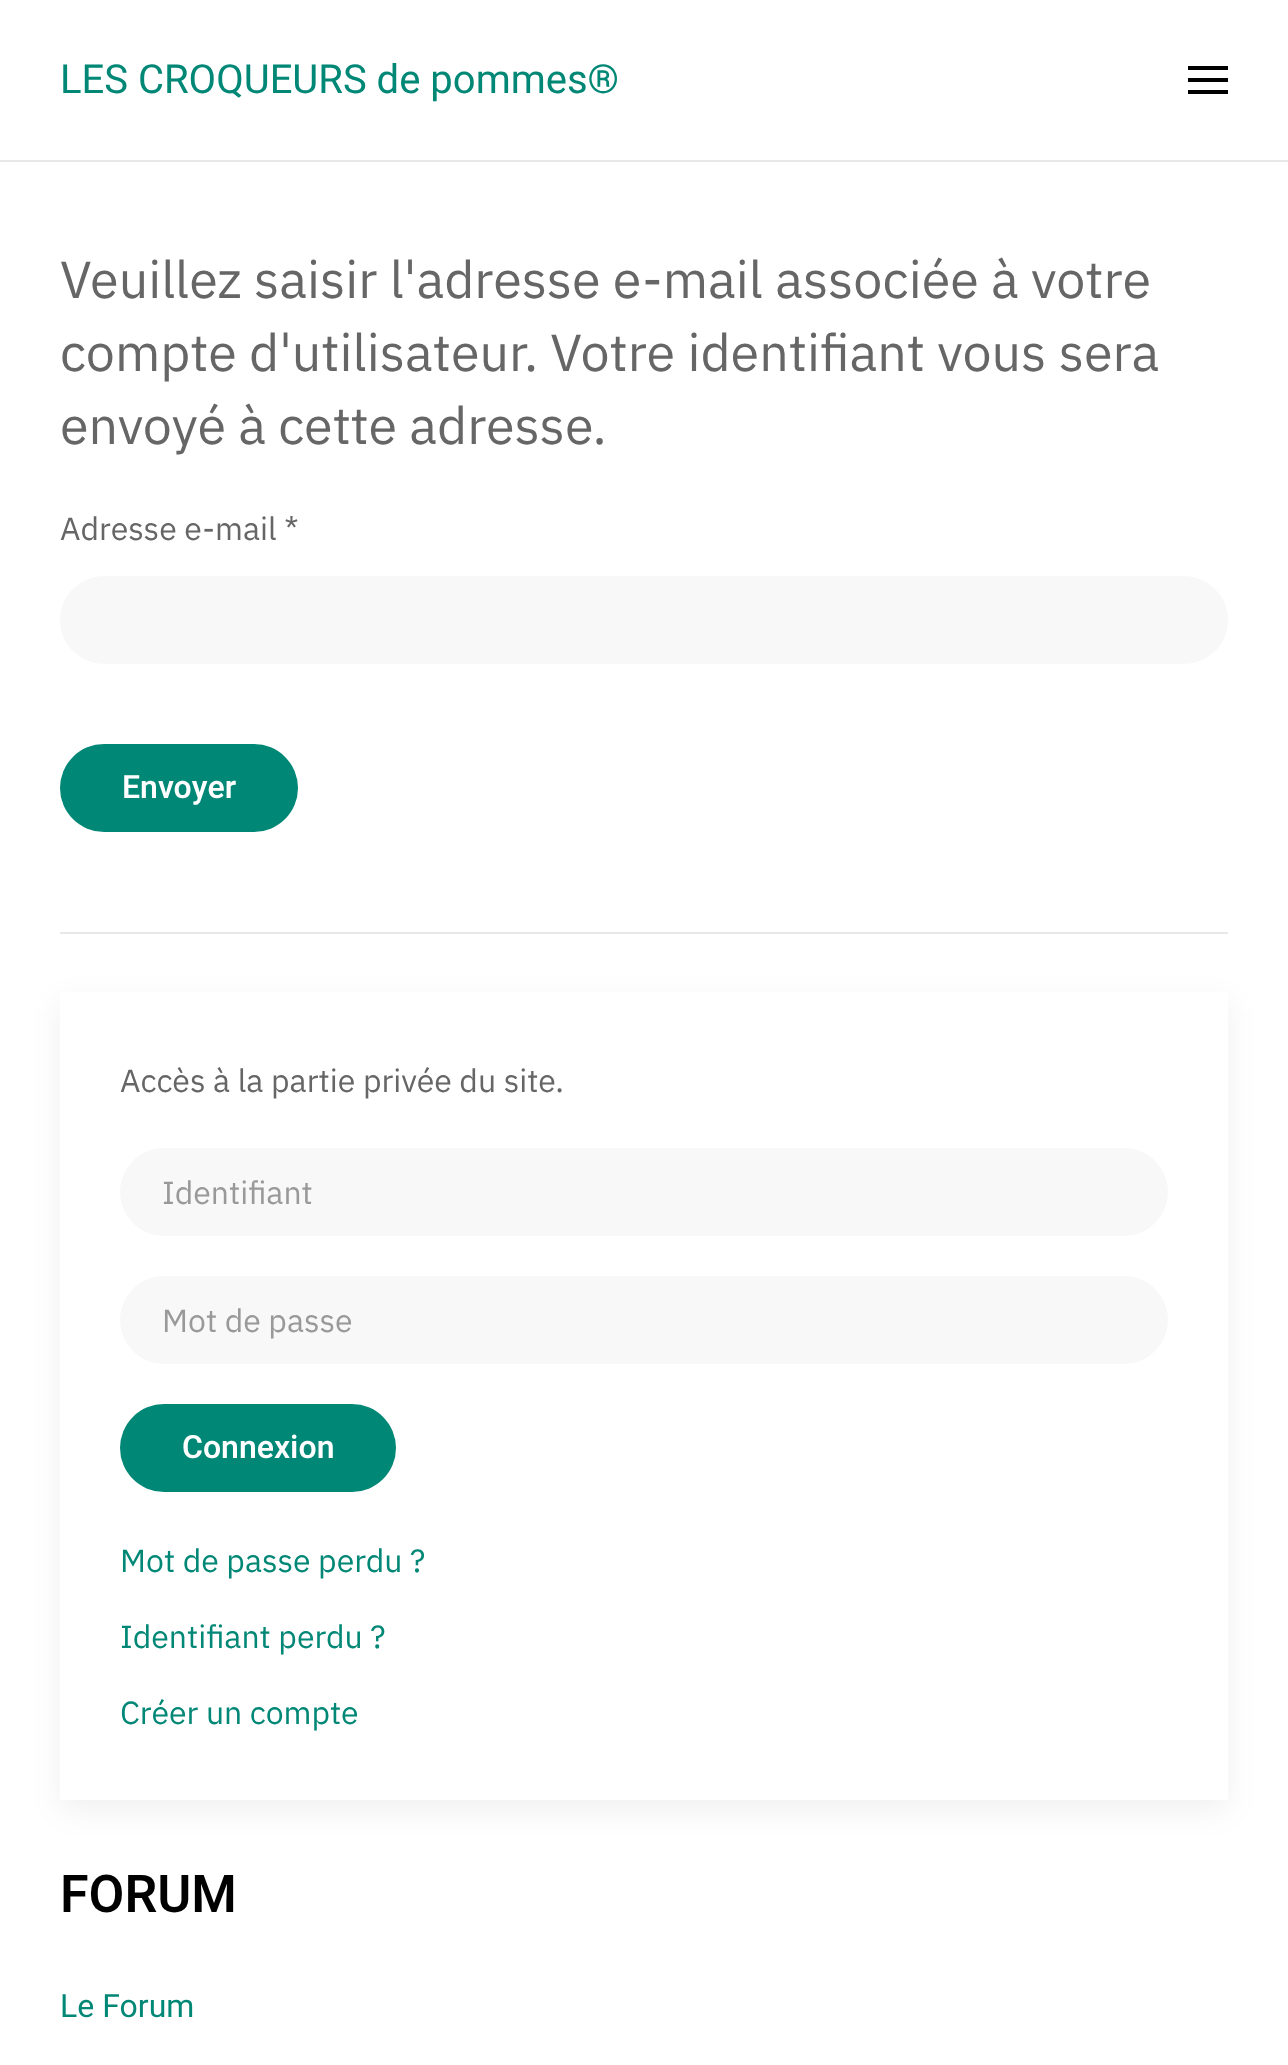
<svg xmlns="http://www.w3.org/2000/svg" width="1288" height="2065">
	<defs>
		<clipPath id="clip1"><path d="M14 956H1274V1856H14ZM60 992H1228V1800H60Z" clip-rule="evenodd" /></clipPath>
	</defs>
	<rect width="100%" height="100%" fill="#FFFFFF" />
	<rect x="0" y="160" width="1288" height="2" fill="#E8E8E8" />
	<text x="60" y="93" font-family="Heebo" font-size="40" fill="#008776">LES CROQUEURS de pommes®</text>
	<rect x="1188" y="66" width="40" height="4" fill="#000000" />
	<rect x="1188" y="78" width="40" height="4" fill="#000000" />
	<rect x="1188" y="90" width="40" height="4" fill="#000000" />
	<g font-family="IBM Plex Sans" font-size="52" fill="#666666">
		<text x="60" y="298">Veuillez saisir l'adresse e-mail associée à votre</text>
		<text x="60" y="371">compte d'utilisateur. Votre identifiant vous sera</text>
		<text x="60" y="444">envoyé à cette adresse.</text>
	</g>
	<text x="60" y="540" font-family="IBM Plex Sans" font-size="32" fill="#666666">Adresse e-mail *</text>
	<rect x="60" y="576" width="1168" height="88" rx="44" fill="#F8F8F8" />
	<rect x="60" y="744" width="238" height="88" rx="44" fill="#008776" />
	<text x="122" y="798" font-family="Heebo" font-size="32" font-weight="600" fill="#FFFFFF">Envoyer</text>
	<rect x="60" y="932" width="1168" height="2" fill="#E8E8E8" />
	<g clip-path="url(#clip1)">
		<rect x="60" y="1002" width="1168" height="808" fill="#000000" fill-opacity="0.06" filter="blur(15px)" />
	</g>
	<text x="120" y="1092" font-family="IBM Plex Sans" font-size="32" fill="#666666">Accès à la partie privée du site.</text>
	<rect x="120" y="1148" width="1048" height="88" rx="44" fill="#F8F8F8" />
	<text x="162" y="1204" font-family="IBM Plex Sans" font-size="32" fill="#999999">Identifiant</text>
	<rect x="120" y="1276" width="1048" height="88" rx="44" fill="#F8F8F8" />
	<text x="162" y="1332" font-family="IBM Plex Sans" font-size="32" fill="#999999">Mot de passe</text>
	<rect x="120" y="1404" width="276" height="88" rx="44" fill="#008776" />
	<text x="182" y="1458" font-family="Heebo" font-size="32" font-weight="600" fill="#FFFFFF">Connexion</text>
	<g font-family="IBM Plex Sans" font-size="32" fill="#008776">
		<text x="120" y="1572">Mot de passe perdu ?</text>
		<text x="120" y="1648">Identifiant perdu ?</text>
		<text x="120" y="1724">Créer un compte</text>
	</g>
	<text x="60" y="1912" font-family="Heebo" font-size="52" font-weight="600" fill="#000000">FORUM</text>
	<text x="60" y="2017" font-family="Heebo" font-size="32" fill="#008776">Le Forum</text>
</svg>
